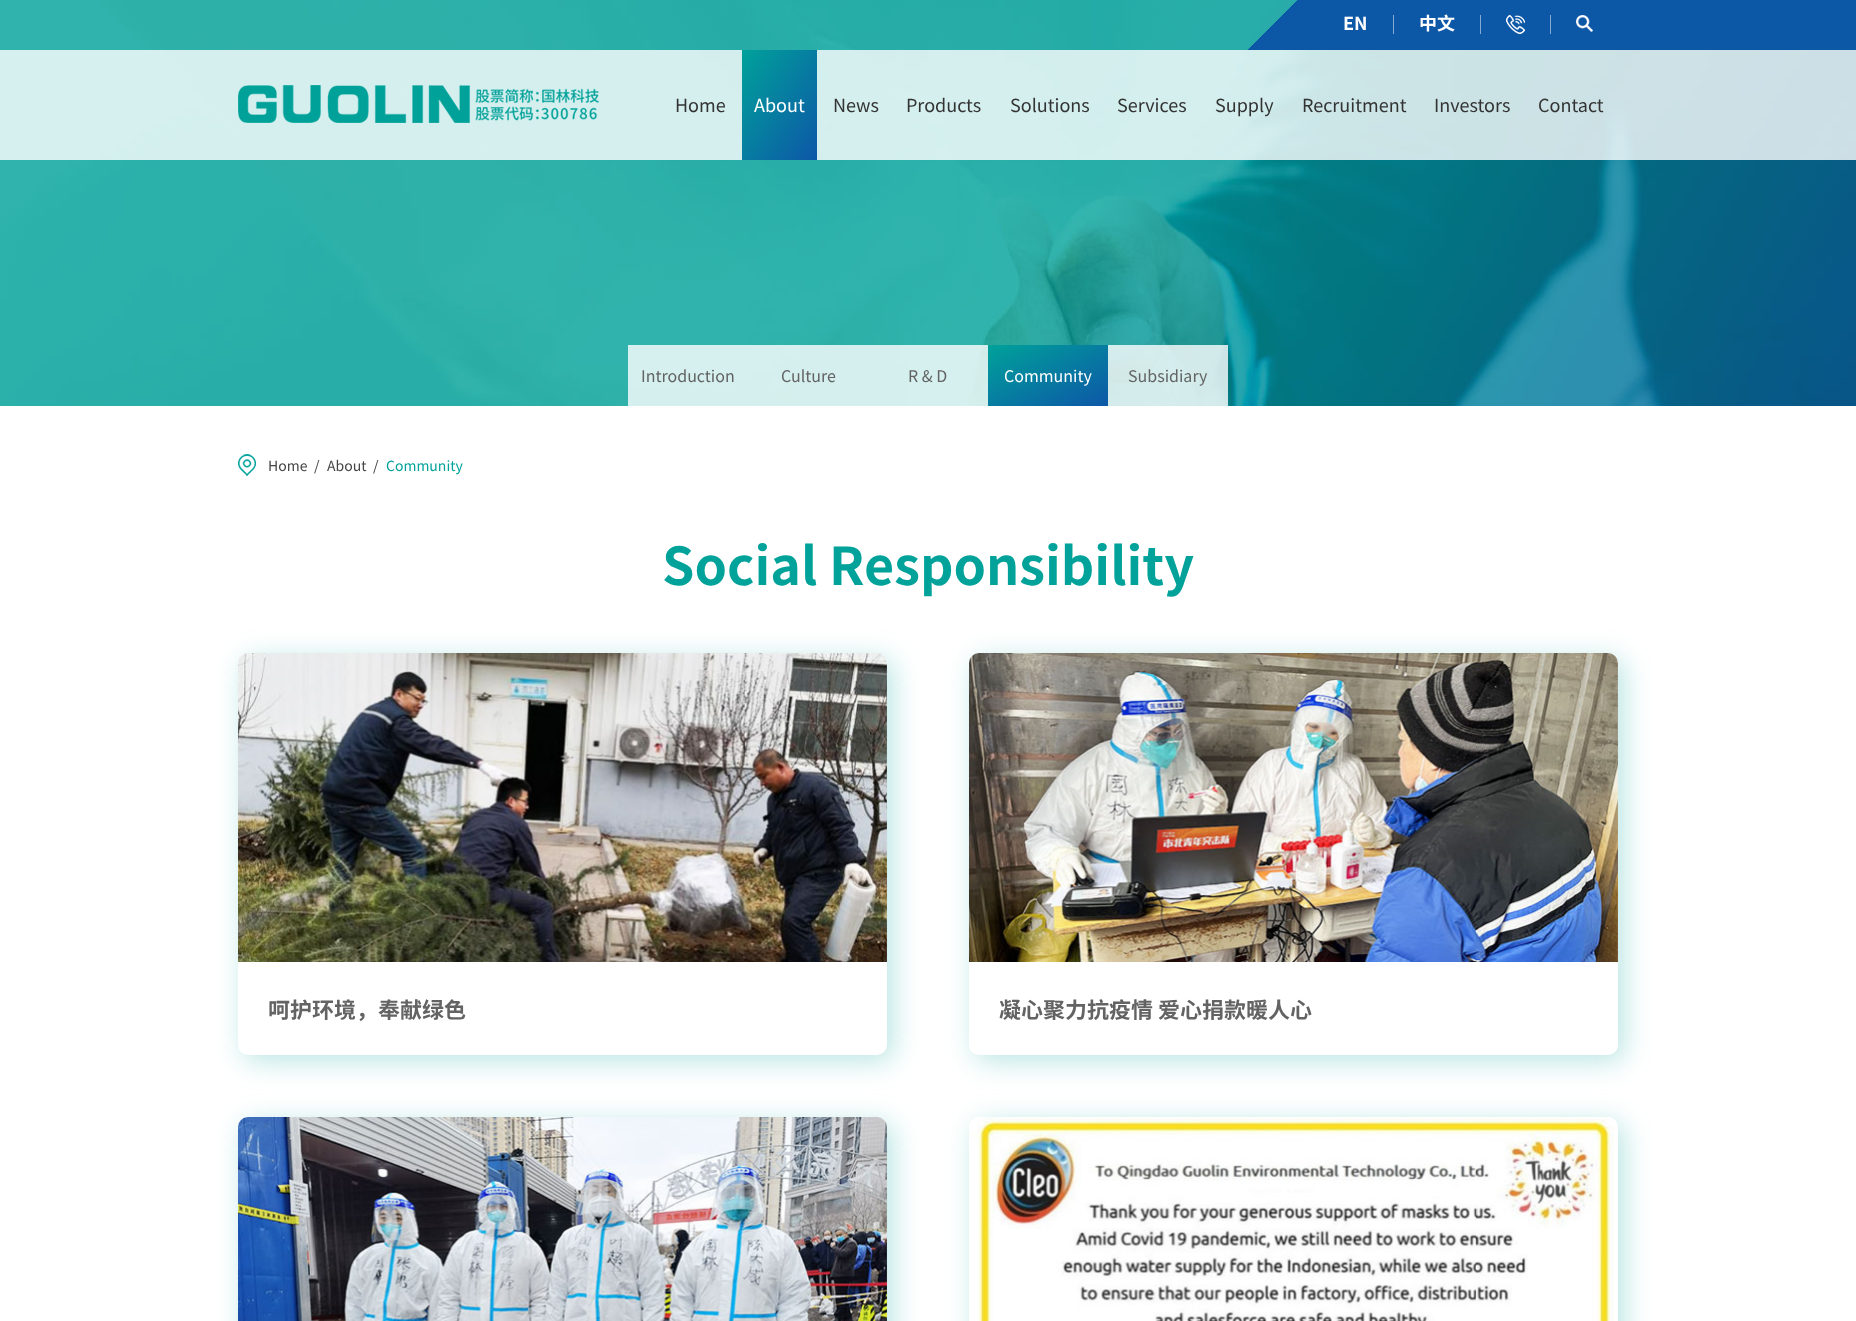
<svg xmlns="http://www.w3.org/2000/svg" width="1856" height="1321">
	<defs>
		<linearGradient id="g1" gradientUnits="userSpaceOnUse" x1="728" y1="70" x2="831" y2="140"><stop offset="0" stop-color="#00A29A" /><stop offset="1" stop-color="#0D57A7" /></linearGradient>
		<linearGradient id="g2" gradientUnits="userSpaceOnUse" x1="1023" y1="327" x2="1073" y2="424"><stop offset="0" stop-color="#00A29A" /><stop offset="1" stop-color="#0D57A7" /></linearGradient>
	</defs>
	<rect width="100%" height="100%" fill="#FFFFFF" />
	<image x="0" y="0" width="1856" height="406" href="assets/img4.png" />
	<text x="1343" y="30" font-family="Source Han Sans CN" font-size="18" font-weight="700" fill="#FFFFFF">EN</text>
	<rect x="1393" y="15" width="1" height="19" fill="#86ABD3" />
	<text x="1419" y="30" font-family="Source Han Sans CN" font-size="18" font-weight="700" fill="#FFFFFF">中文</text>
	<rect x="1480" y="15" width="1" height="19" fill="#86ABD3" />
	<image x="1506" y="15" width="19" height="19" href="assets/img1.png" />
	<rect x="1550" y="15" width="1" height="19" fill="#86ABD3" />
	<image x="1576" y="15" width="17" height="17" href="assets/img2.png" />
	<rect x="0" y="50" width="1856" height="110" fill="#FFFFFF" fill-opacity="0.8" />
	<image x="238" y="85" width="361" height="38" href="assets/img3.png" />
	<text x="675" y="112" font-family="Source Han Sans CN" font-size="18" fill="#333333">Home</text>
	<rect x="742" y="50" width="75" height="110" fill="url(#g1)" />
	<text x="754" y="112" font-family="Source Han Sans CN" font-size="18" fill="#FFFFFF">About</text>
	<g font-family="Source Han Sans CN" font-size="18" fill="#333333">
		<text x="833" y="112">News</text>
		<text x="906" y="112">Products</text>
		<text x="1010" y="112">Solutions</text>
		<text x="1117" y="112">Services</text>
		<text x="1215" y="112">Supply</text>
		<text x="1302" y="112">Recruitment</text>
		<text x="1434" y="112">Investors</text>
		<text x="1538" y="112">Contact</text>
	</g>
	<rect x="628" y="345" width="120" height="61" fill="#FFFFFF" fill-opacity="0.8" />
	<text x="641" y="382" font-family="Source Han Sans CN" font-size="16" fill="#636363">Introduction</text>
	<rect x="748" y="345" width="120" height="61" fill="#FFFFFF" fill-opacity="0.8" />
	<text x="781" y="382" font-family="Source Han Sans CN" font-size="16" fill="#636363">Culture</text>
	<rect x="868" y="345" width="120" height="61" fill="#FFFFFF" fill-opacity="0.8" />
	<text x="908" y="382" font-family="Source Han Sans CN" font-size="16" fill="#636363">R &amp; D</text>
	<rect x="988" y="345" width="120" height="61" fill="url(#g2)" />
	<text x="1004" y="382" font-family="Source Han Sans CN" font-size="16" fill="#FFFFFF">Community</text>
	<rect x="1108" y="345" width="120" height="61" fill="#FFFFFF" fill-opacity="0.8" />
	<text x="1128" y="382" font-family="Source Han Sans CN" font-size="16" fill="#636363">Subsidiary</text>
	<image x="238" y="454" width="18" height="22" href="assets/img5.png" />
	<g font-family="Source Han Sans CN" font-size="14" fill="#444444">
		<text x="268" y="471">Home</text>
		<text x="314" y="471">/</text>
		<text x="327" y="471">About</text>
		<text x="373" y="471">/</text>
	</g>
	<text x="386" y="471" font-family="Source Han Sans CN" font-size="14" fill="#00A29A">Community</text>
	<text x="662" y="585" font-family="Source Han Sans CN" font-size="52" font-weight="700" fill="#00A29A">Social Responsibility</text>
	<rect x="244" y="659" width="649" height="402" rx="10" fill="#00A29A" fill-opacity="0.28" filter="blur(14px)" />
	<rect x="238" y="653" width="649" height="402" rx="10" fill="#FFFFFF" />
	<image x="238" y="653" width="649" height="309" href="assets/img6.png" />
	<text x="268" y="1018" font-family="Source Han Sans CN" font-size="22" font-weight="700" fill="#636363">呵护环境，奉献绿色</text>
	<rect x="975" y="659" width="649" height="402" rx="10" fill="#00A29A" fill-opacity="0.28" filter="blur(14px)" />
	<rect x="969" y="653" width="649" height="402" rx="10" fill="#FFFFFF" />
	<image x="969" y="653" width="649" height="309" href="assets/img7.png" />
	<text x="999" y="1018" font-family="Source Han Sans CN" font-size="22" font-weight="700" fill="#636363">凝心聚力抗疫情 爱心捐款暖人心</text>
	<rect x="244" y="1123" width="649" height="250" rx="10" fill="#00A29A" fill-opacity="0.28" filter="blur(14px)" />
	<rect x="238" y="1117" width="649" height="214" rx="10" fill="#FFFFFF" />
	<image x="238" y="1117" width="649" height="204" href="assets/img8.png" />
	<rect x="975" y="1123" width="649" height="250" rx="10" fill="#00A29A" fill-opacity="0.28" filter="blur(14px)" />
	<rect x="969" y="1117" width="649" height="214" rx="10" fill="#FFFFFF" />
	<image x="969" y="1117" width="646" height="204" href="assets/img9.png" />
</svg>
